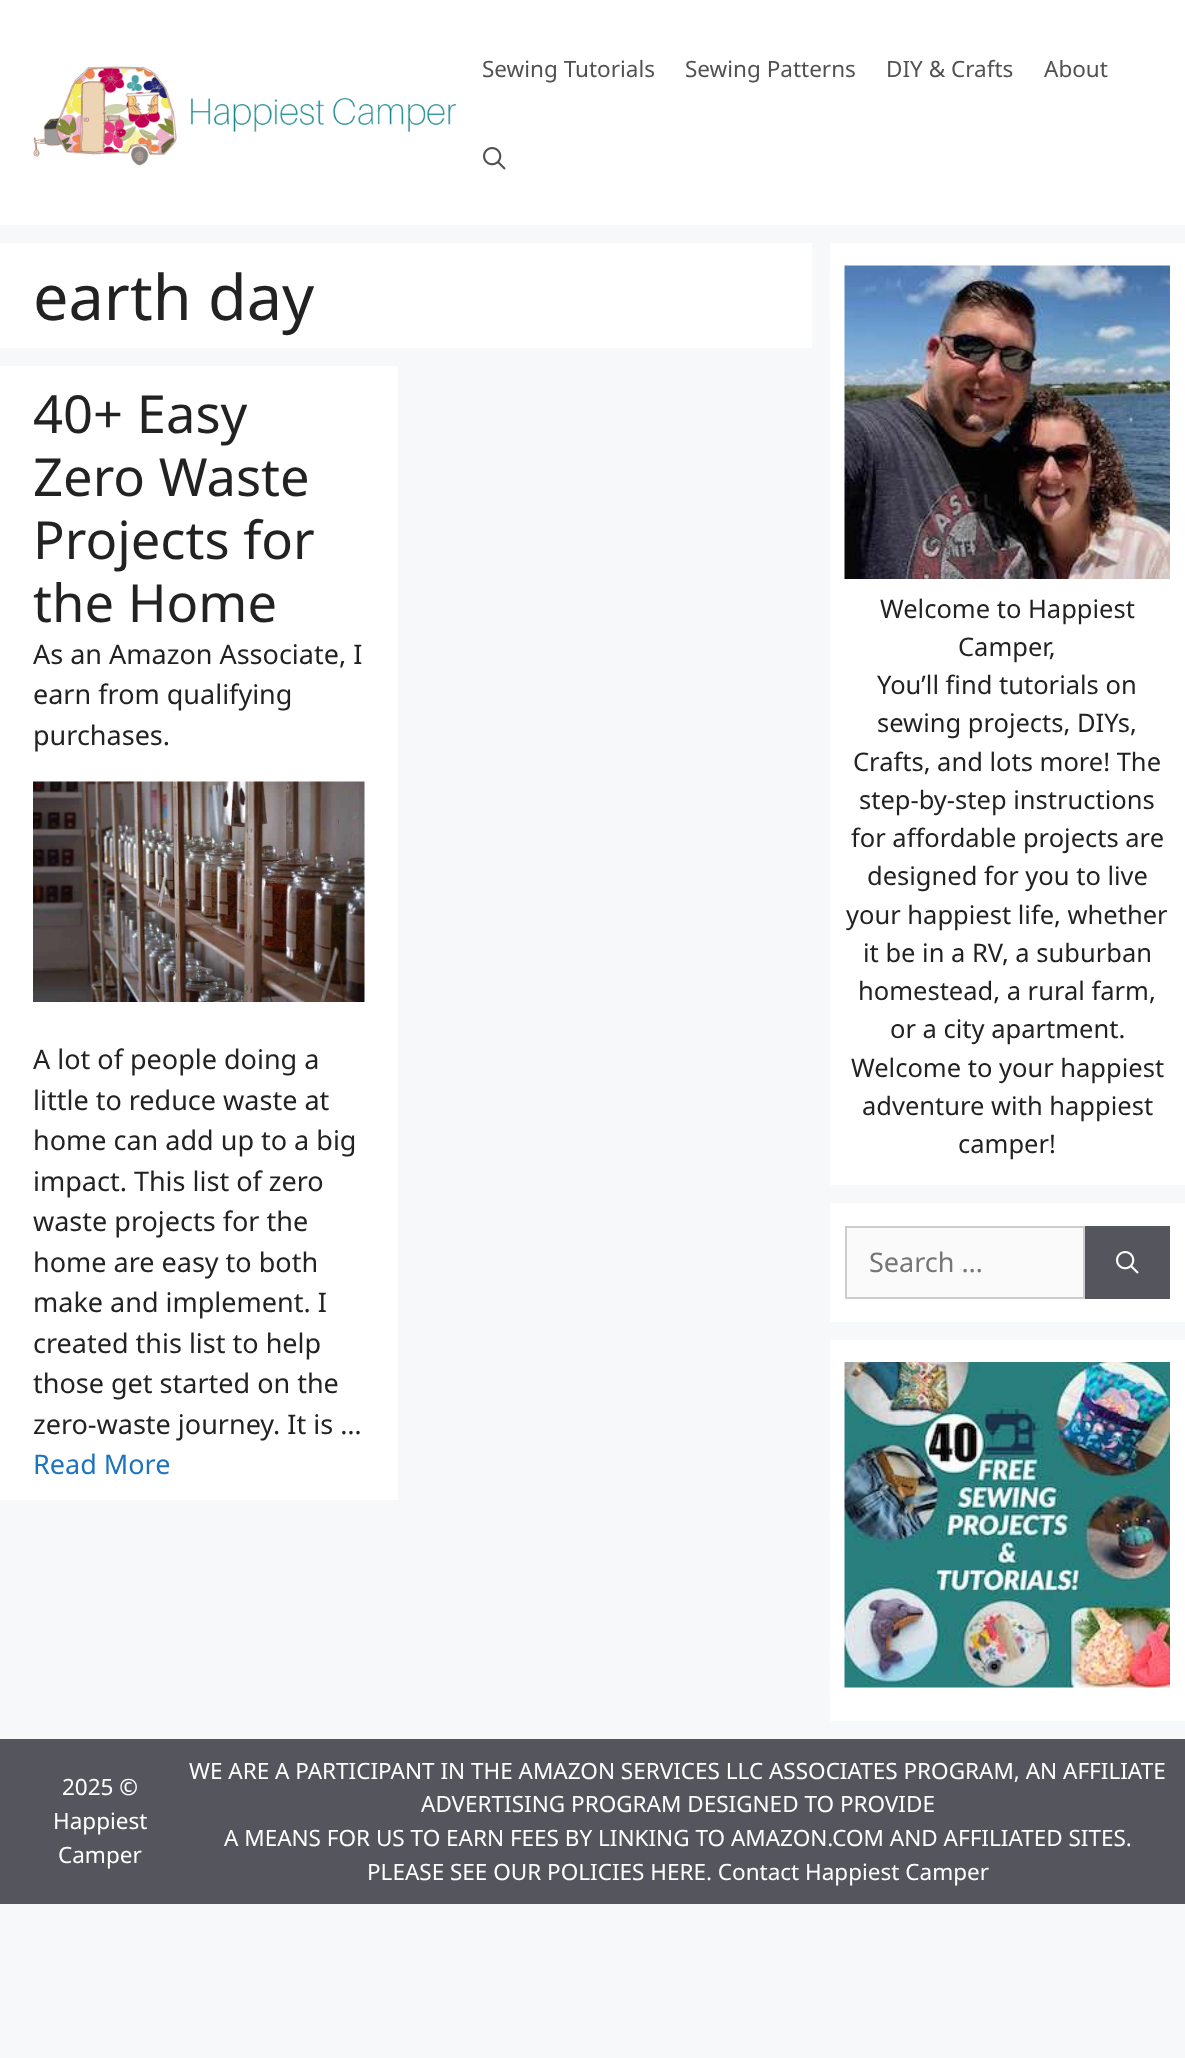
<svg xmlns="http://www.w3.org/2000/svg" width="1185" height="2058">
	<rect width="100%" height="100%" fill="#F7F8F9" />
	<rect x="0" y="0" width="1185" height="225" fill="#FFFFFF" />
	<image x="33" y="65" width="424" height="101" href="assets/img1.png" />
	<g font-family="Noto Sans" font-size="22.5" fill="#515151">
		<text x="482" y="77">Sewing Tutorials</text>
		<text x="685" y="77">Sewing Patterns</text>
		<text x="886" y="77">DIY &amp; Crafts</text>
		<text x="1044" y="77">About</text>
	</g>
	<image x="483" y="147" width="23" height="23" href="assets/img2.png" />
	<rect x="0" y="243" width="812" height="105" fill="#FFFFFF" />
	<text x="33" y="320" font-family="Noto Sans" font-size="63" fill="#222222">earth day</text>
	<rect x="0" y="366" width="398" height="1134" fill="#FFFFFF" />
	<g font-family="Noto Sans" font-size="52.5" fill="#222222">
		<text x="33" y="433">40+ Easy</text>
		<text x="33" y="496">Zero Waste</text>
		<text x="33" y="559">Projects for</text>
		<text x="33" y="622">the Home</text>
	</g>
	<g font-family="Noto Sans" font-size="27" fill="#222222">
		<text x="33" y="664">As an Amazon Associate, I</text>
		<text x="33" y="704">earn from qualifying</text>
		<text x="33" y="745">purchases.</text>
	</g>
	<image x="33" y="781" width="332" height="221" href="assets/img3.png" />
	<g font-family="Noto Sans" font-size="27" fill="#222222">
		<text x="33" y="1069">A lot of people doing a</text>
		<text x="33" y="1110">little to reduce waste at</text>
		<text x="33" y="1150">home can add up to a big</text>
		<text x="33" y="1191">impact. This list of zero</text>
		<text x="33" y="1231">waste projects for the</text>
		<text x="33" y="1272">home are easy to both</text>
		<text x="33" y="1312">make and implement. I</text>
		<text x="33" y="1353">created this list to help</text>
		<text x="33" y="1393">those get started on the</text>
		<text x="33" y="1434">zero-waste journey. It is …</text>
	</g>
	<text x="33" y="1474" font-family="Noto Sans" font-size="27" fill="#1E73BE">Read More</text>
	<rect x="830" y="243" width="355" height="942" fill="#FFFFFF" />
	<image x="844" y="265" width="326" height="314" href="assets/img4.png" />
	<g font-family="Noto Sans" font-size="25.5" fill="#222222">
		<text x="880" y="618">Welcome to Happiest</text>
		<text x="958" y="656">Camper,</text>
		<text x="877" y="694">You’ll find tutorials on</text>
		<text x="877" y="732">sewing projects, DIYs,</text>
		<text x="853" y="771">Crafts, and lots more! The</text>
		<text x="859" y="809">step-by-step instructions</text>
		<text x="851" y="847">for affordable projects are</text>
		<text x="867" y="885">designed for you to live</text>
		<text x="846" y="924">your happiest life, whether</text>
		<text x="863" y="962">it be in a RV, a suburban</text>
		<text x="858" y="1000">homestead, a rural farm,</text>
		<text x="890" y="1038">or a city apartment.</text>
		<text x="851" y="1077">Welcome to your happiest</text>
		<text x="862" y="1115">adventure with happiest</text>
		<text x="958" y="1153">camper!</text>
	</g>
	<rect x="830" y="1203" width="355" height="119" fill="#FFFFFF" />
	<rect x="846" y="1227" width="238" height="71" fill="#FAFAFA" stroke="#CCCCCC" stroke-width="2" />
	<text x="869" y="1272" font-family="Noto Sans" font-size="27" fill="#757575">Search …</text>
	<rect x="1085" y="1226" width="85" height="73" fill="#55555E" />
	<image x="1116" y="1251" width="23" height="23" href="assets/img5.png" />
	<rect x="830" y="1340" width="355" height="381" fill="#FFFFFF" />
	<image x="844" y="1362" width="326" height="326" href="assets/img6.png" />
	<rect x="0" y="1739" width="1185" height="165" fill="#55555E" />
	<g font-family="Noto Sans" font-size="22.5" fill="#FFFFFF">
		<text x="62" y="1795">2025 ©</text>
		<text x="53" y="1829">Happiest</text>
		<text x="58" y="1863">Camper</text>
		<text x="189" y="1779">WE ARE A PARTICIPANT IN THE AMAZON SERVICES LLC ASSOCIATES PROGRAM, AN AFFILIATE</text>
		<text x="421" y="1812">ADVERTISING PROGRAM DESIGNED TO PROVIDE</text>
		<text x="224" y="1846">A MEANS FOR US TO EARN FEES BY LINKING TO AMAZON.COM AND AFFILIATED SITES.</text>
		<text x="367" y="1880">PLEASE SEE OUR POLICIES HERE. Contact Happiest Camper</text>
	</g>
</svg>
